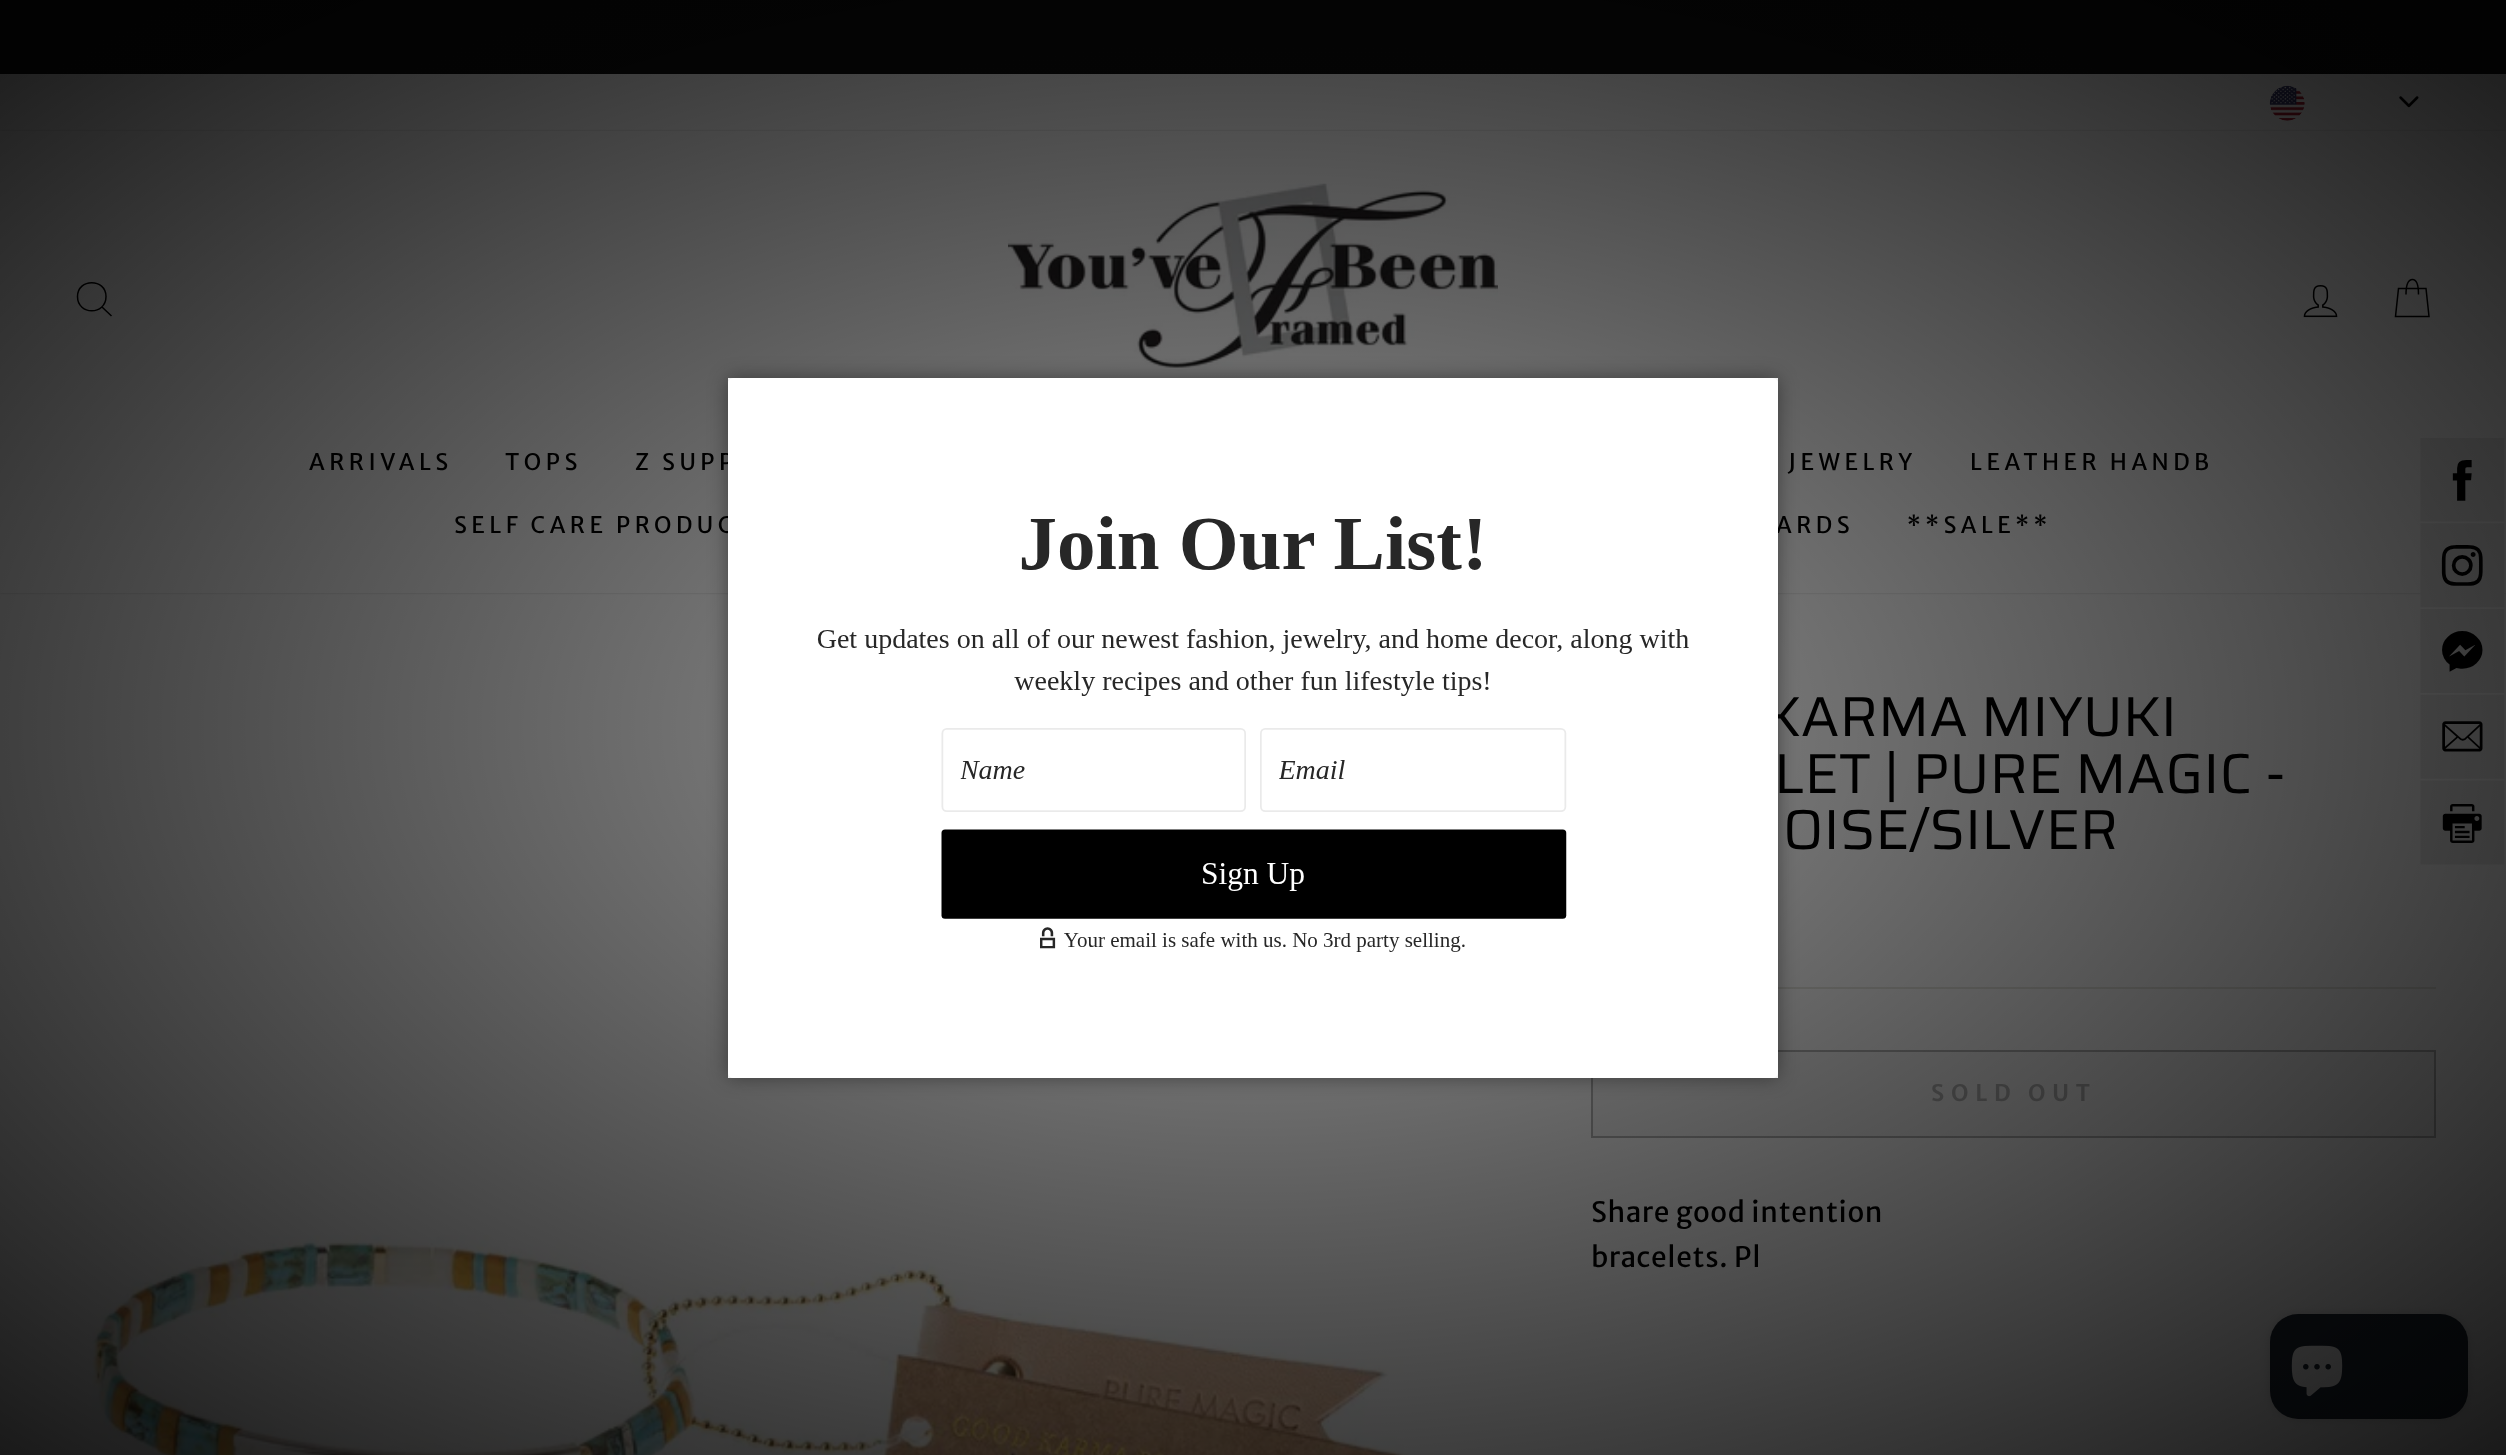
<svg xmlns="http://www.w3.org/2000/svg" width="2506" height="1455">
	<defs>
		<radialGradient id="g1" gradientUnits="userSpaceOnUse" cx="0" cy="0" r="1" gradientTransform="matrix(1772 0 0 1030 1253 728)"><stop offset="0" stop-color="#000000" stop-opacity="0.4" /><stop offset="1" stop-color="#000000" stop-opacity="0.9" /></radialGradient>
	</defs>
	<rect width="100%" height="100%" fill="#FFFFFF" />
	<rect x="0" y="0" width="2506" height="74" fill="#0F0F0F" />
	<image x="2399" y="96" width="20" height="12" href="assets/img2.png" />
	<image x="2269" y="85" width="36" height="36" href="assets/img3.png" />
	<rect x="0" y="131" width="2506" height="462" fill="#000000" fill-opacity="0.2" filter="blur(1px)" />
	<rect x="0" y="131" width="2506" height="462" fill="#FFFFFF" />
	<path d="M106 296.5C106 315.5 77.5 315.5 77.5 296.5C77.5 278 106 278 106 296.5ZM111.5 316L102 307" fill="none" stroke="#000000" stroke-width="1.5" />
	<image x="1008" y="183" width="490" height="195" href="assets/img4.png" />
	<image x="2303" y="285" width="35" height="33" href="assets/img5.png" />
	<path d="M2406 294.5C2406 282.5 2409 279.5 2412.5 279.5C2415.5 279.5 2418.5 282.5 2418.5 294.5M2398.5 288.5H2426L2429 316.5H2395.5Z" fill="none" stroke="#000000" stroke-width="1.5" />
	<g font-family="Merriweather Sans" font-size="22.75" letter-spacing="4.5" fill="#000000">
		<text x="309" y="470">ARRIVALS</text>
		<text x="505" y="470">TOPS</text>
		<text x="635" y="470">Z SUPP</text>
		<text x="1788" y="470">JEWELRY</text>
		<text x="1970" y="470">LEATHER HANDB</text>
		<text x="454" y="533">SELF CARE PRODUC</text>
		<text x="1776" y="533">ARDS</text>
		<text x="1907" y="533">**SALE**</text>
	</g>
	<g font-family="Saira" font-size="56.5" fill="#000000">
		<text x="1763" y="736">KARMA MIYUKI</text>
		<text x="1774" y="793">LET | PURE MAGIC -</text>
		<text x="1783" y="849">OISE/SILVER</text>
	</g>
	<rect x="1778" y="987" width="658" height="2" fill="#E8E8E1" />
	<rect x="1592" y="1051" width="843" height="86" fill="#F6F6F6" stroke="#B6B6B6" stroke-width="2" />
	<text x="1931" y="1101" font-family="Merriweather Sans" font-size="22.75" font-weight="600" letter-spacing="6.75" fill="#B6B6B6">SOLD OUT</text>
	<g font-family="Merriweather Sans" font-size="28" letter-spacing="0.7" fill="#000000">
		<text x="1591" y="1222">Share good intention</text>
		<text x="1591" y="1267">bracelets. Pl</text>
	</g>
	<image x="92" y="1235" width="1351" height="220" href="assets/img6.png" />
	<image x="2420" y="438" width="85" height="427" href="assets/img7.png" />
	<rect x="2270" y="1314" width="198" height="105" rx="28" fill="#000000" fill-opacity="0.15" filter="blur(4.5px)" />
	<rect x="2270" y="1314" width="198" height="105" rx="28" fill="#202A36" />
	<image x="2291" y="1345" width="52" height="52" href="assets/img8.png" />
	<rect x="0" y="0" width="2506" height="1455" fill="url(#g1)" />
	<rect x="728" y="378" width="1050" height="700" rx="4" fill="#000000" fill-opacity="0.4" filter="blur(9.5px)" />
	<image x="728" y="378" width="1050" height="700" href="assets/img1.png" />
</svg>
